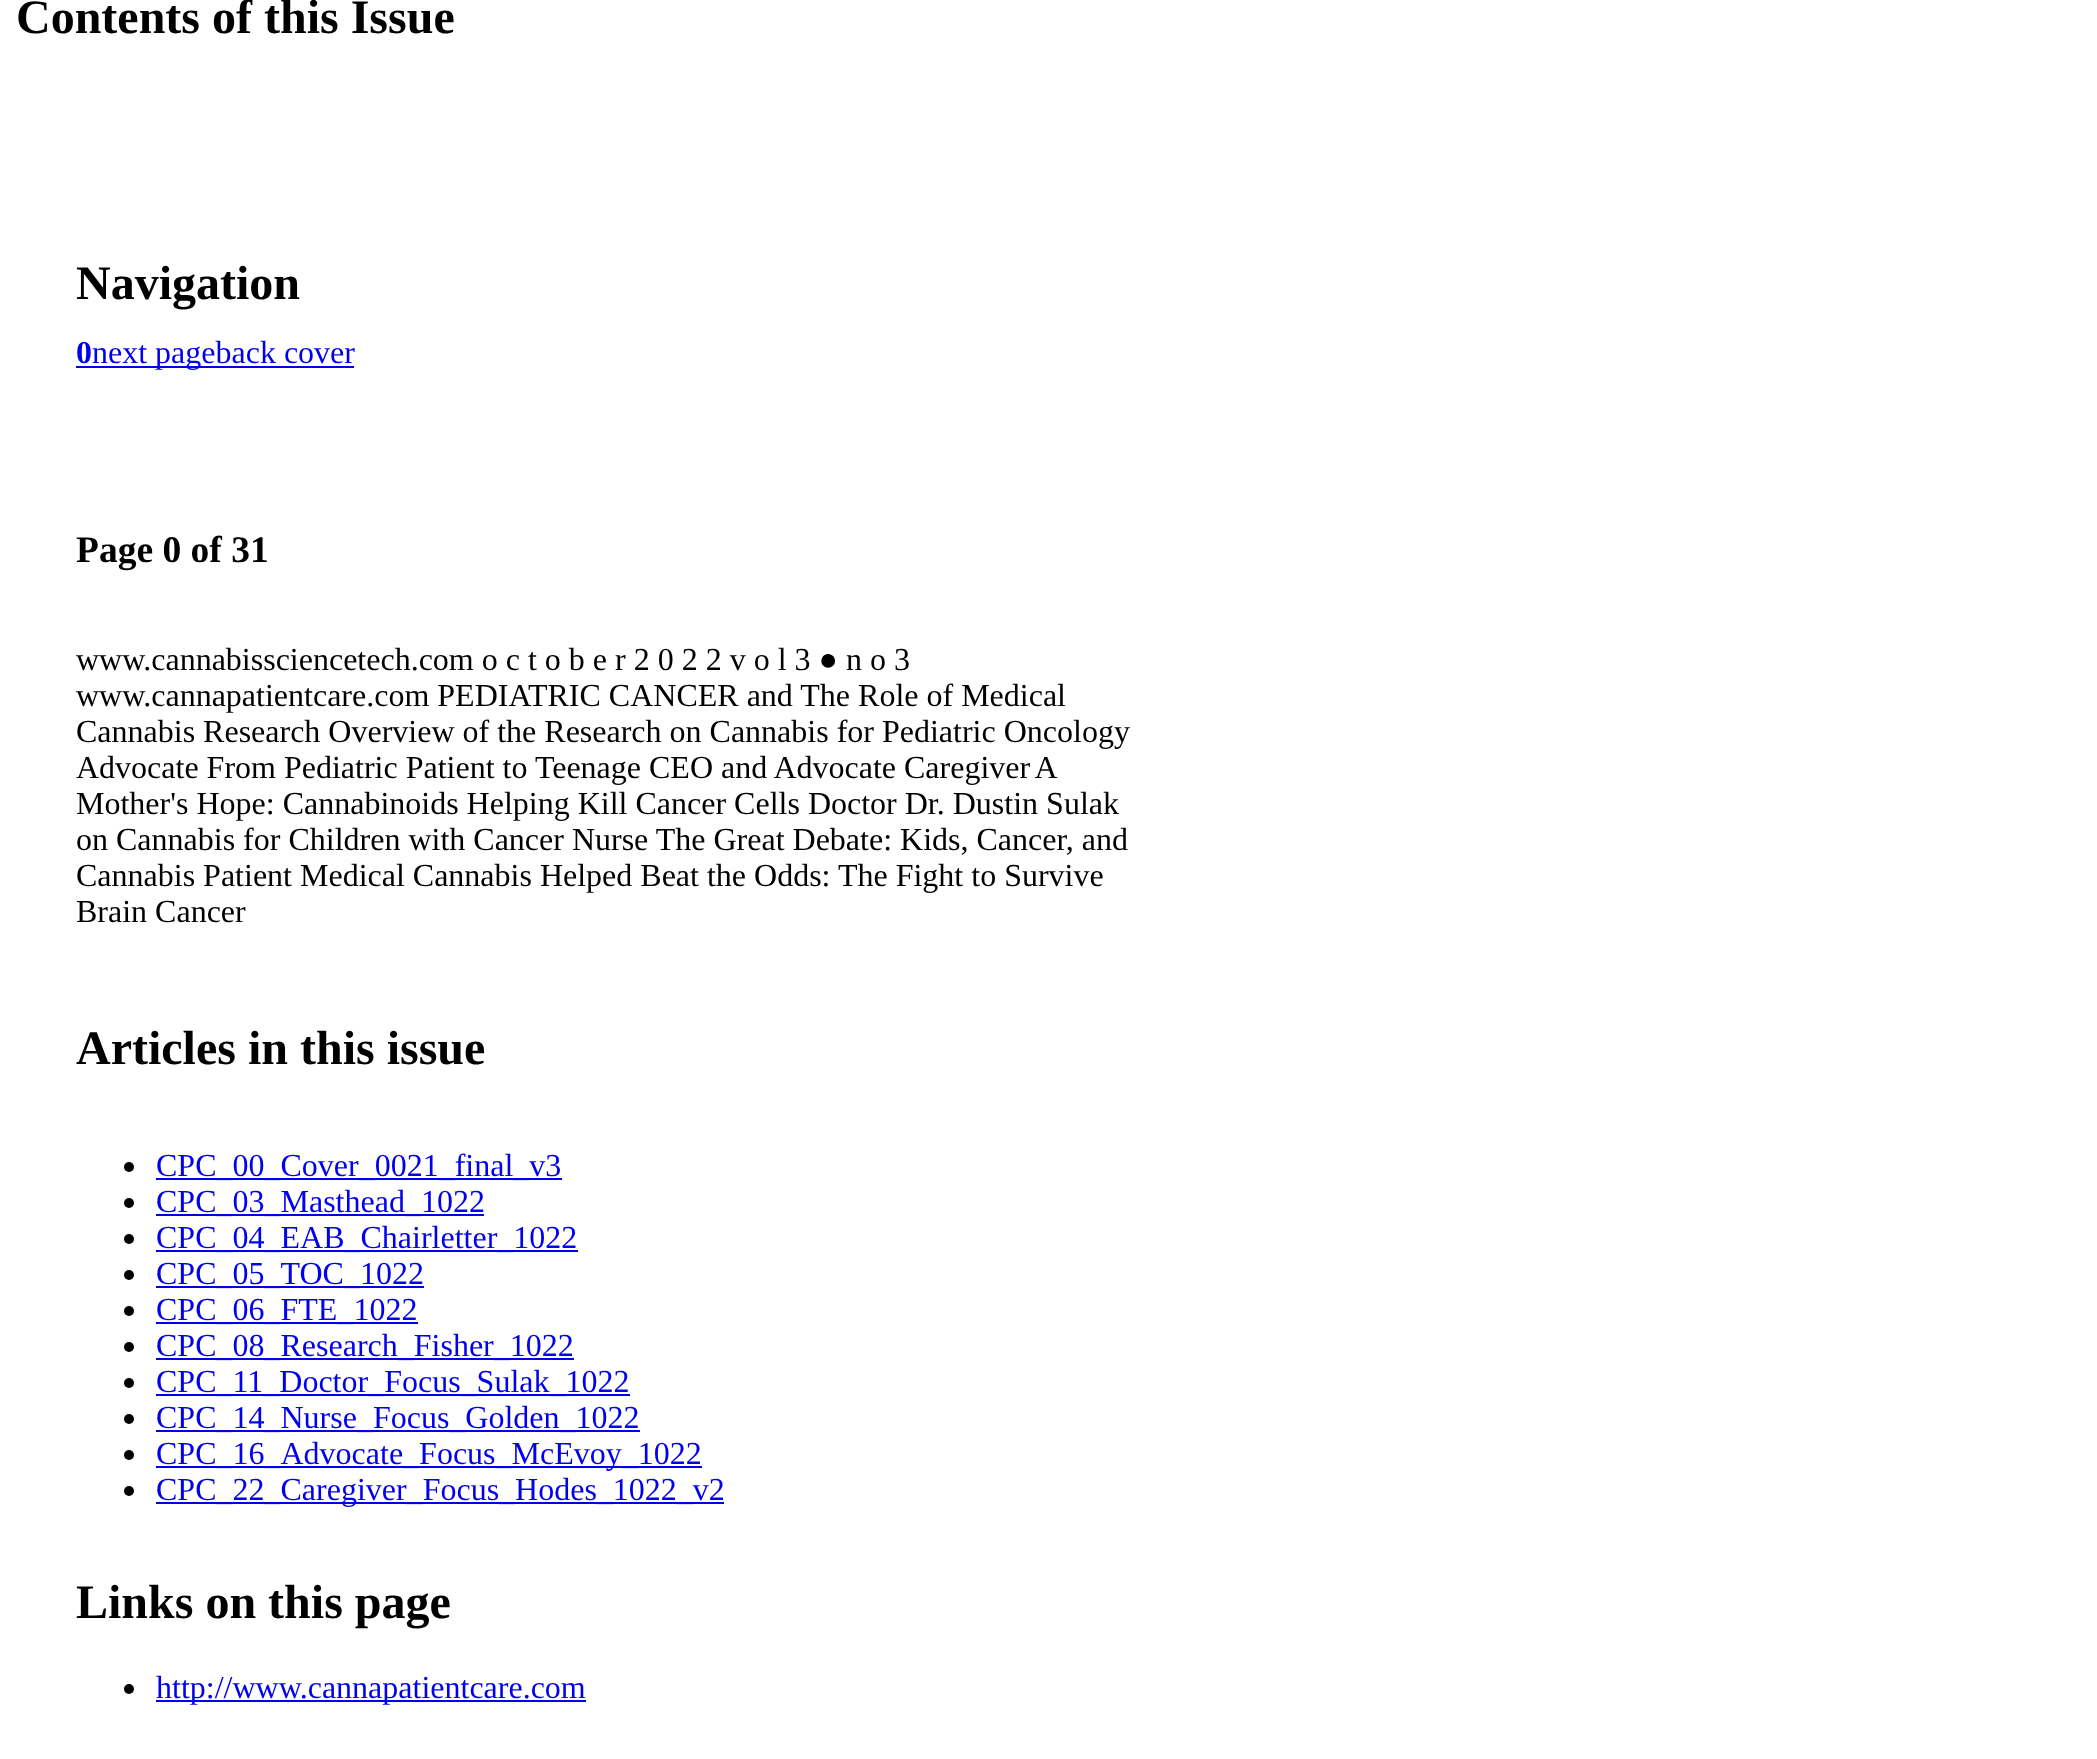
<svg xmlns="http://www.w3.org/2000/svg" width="2097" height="1759">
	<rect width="100%" height="100%" fill="#FFFFFF" />
	<g font-family="Liberation Serif" font-size="48" font-weight="700" fill="#000000">
		<text x="16" y="33">Contents of this Issue</text>
		<text x="76" y="299">Navigation</text>
	</g>
	<text x="76" y="363" font-family="Liberation Serif" font-size="32" font-weight="700" fill="#0000EE">0</text>
	<rect x="76" y="366" width="278" height="2" fill="#0000EE" />
	<text x="92" y="363" font-family="Liberation Serif" font-size="32" fill="#0000EE">next pageback cover</text>
	<text x="76" y="562" font-family="Liberation Serif" font-size="37.5" font-weight="700" fill="#000000">Page 0 of 31</text>
	<g font-family="Liberation Serif" font-size="32" fill="#000000">
		<text x="76" y="670">www.cannabissciencetech.com o c t o b e r 2 0 2 2 v o l 3 ● n o 3</text>
		<text x="76" y="706">www.cannapatientcare.com PEDIATRIC CANCER and The Role of Medical</text>
		<text x="76" y="742">Cannabis Research Overview of the Research on Cannabis for Pediatric Oncology</text>
		<text x="76" y="778">Advocate From Pediatric Patient to Teenage CEO and Advocate</text>
		<text x="904" y="778" word-spacing="-2">Caregiver A</text>
		<text x="76" y="814">Mother's Hope: Cannabinoids Helping Kill Cancer Cells Doctor Dr. Dustin Sulak</text>
		<text x="76" y="850">on Cannabis for Children with Cancer Nurse The Great Debate: Kids, Cancer, and</text>
		<text x="76" y="886">Cannabis Patient Medical Cannabis Helped Beat the Odds: The Fight to Survive</text>
		<text x="76" y="922">Brain Cancer</text>
	</g>
	<text x="76" y="1064" font-family="Liberation Serif" font-size="48" font-weight="700" fill="#000000">Articles in this issue</text>
	<circle cx="129" cy="1167" r="5" fill="#000000" />
	<rect x="156" y="1178" width="406" height="2" fill="#0000EE" />
	<text x="156" y="1176" font-family="Liberation Serif" font-size="32" fill="#0000EE">CPC_00_Cover_0021_final_v3</text>
	<circle cx="129" cy="1203" r="5" fill="#000000" />
	<rect x="156" y="1214" width="328" height="2" fill="#0000EE" />
	<text x="156" y="1212" font-family="Liberation Serif" font-size="32" fill="#0000EE">CPC_03_Masthead_1022</text>
	<circle cx="129" cy="1239" r="5" fill="#000000" />
	<rect x="156" y="1250" width="422" height="2" fill="#0000EE" />
	<text x="156" y="1248" font-family="Liberation Serif" font-size="32" fill="#0000EE">CPC_04_EAB_Chairletter_1022</text>
	<circle cx="129" cy="1275" r="5" fill="#000000" />
	<rect x="156" y="1286" width="268" height="2" fill="#0000EE" />
	<text x="156" y="1284" font-family="Liberation Serif" font-size="32" fill="#0000EE">CPC_05_TOC_1022</text>
	<circle cx="129" cy="1311" r="5" fill="#000000" />
	<rect x="156" y="1322" width="262" height="2" fill="#0000EE" />
	<text x="156" y="1320" font-family="Liberation Serif" font-size="32" fill="#0000EE">CPC_06_FTE_1022</text>
	<circle cx="129" cy="1347" r="5" fill="#000000" />
	<rect x="156" y="1358" width="418" height="2" fill="#0000EE" />
	<text x="156" y="1356" font-family="Liberation Serif" font-size="32" fill="#0000EE">CPC_08_Research_Fisher_1022</text>
	<circle cx="129" cy="1383" r="5" fill="#000000" />
	<rect x="156" y="1394" width="474" height="2" fill="#0000EE" />
	<text x="156" y="1392" font-family="Liberation Serif" font-size="32" fill="#0000EE">CPC_11_Doctor_Focus_Sulak_1022</text>
	<circle cx="129" cy="1419" r="5" fill="#000000" />
	<rect x="156" y="1430" width="484" height="2" fill="#0000EE" />
	<text x="156" y="1428" font-family="Liberation Serif" font-size="32" fill="#0000EE">CPC_14_Nurse_Focus_Golden_1022</text>
	<circle cx="129" cy="1455" r="5" fill="#000000" />
	<rect x="156" y="1466" width="546" height="2" fill="#0000EE" />
	<text x="156" y="1464" font-family="Liberation Serif" font-size="32" fill="#0000EE">CPC_16_Advocate_Focus_McEvoy_1022</text>
	<circle cx="129" cy="1491" r="5" fill="#000000" />
	<rect x="156" y="1502" width="568" height="2" fill="#0000EE" />
	<text x="156" y="1500" font-family="Liberation Serif" font-size="32" fill="#0000EE">CPC_22_Caregiver_Focus_Hodes_1022_v2</text>
	<text x="76" y="1618" font-family="Liberation Serif" font-size="48" font-weight="700" fill="#000000">Links on this page</text>
	<circle cx="129" cy="1689" r="5" fill="#000000" />
	<rect x="156" y="1700" width="430" height="2" fill="#0000EE" />
	<text x="156" y="1698" font-family="Liberation Serif" font-size="32" fill="#0000EE">http://www.cannapatientcare.com</text>
</svg>
